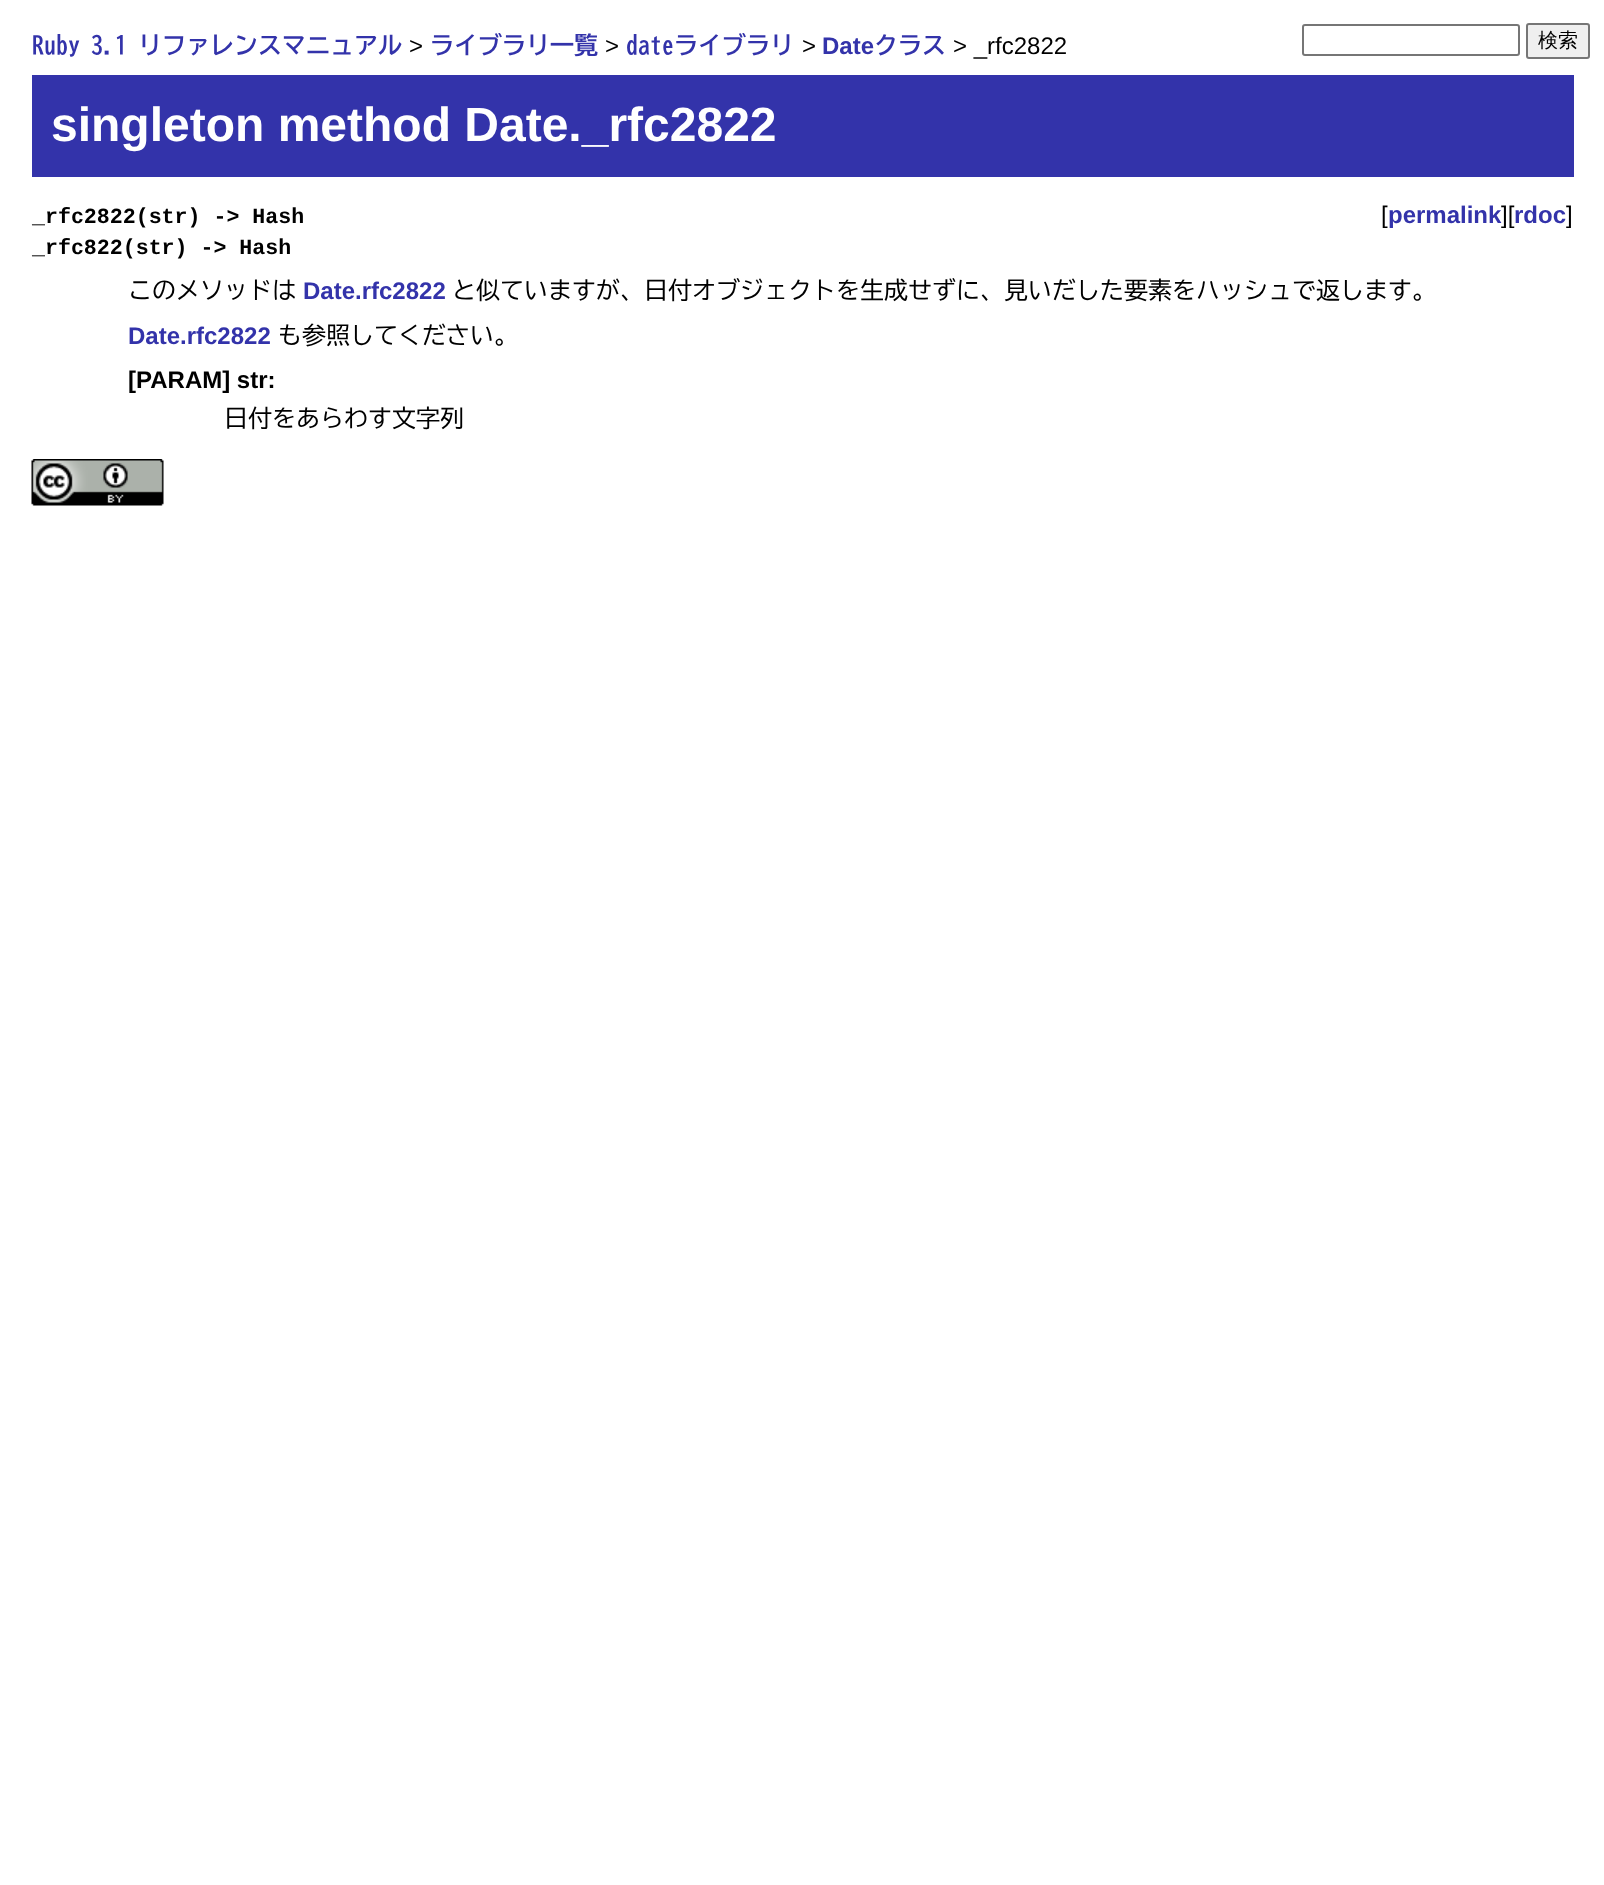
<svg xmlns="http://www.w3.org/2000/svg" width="1604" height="1885">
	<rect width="100%" height="100%" fill="#FFFFFF" />
	<text x="32" y="54" word-spacing="-1" font-family="BIZ UDGothic" font-size="24" font-weight="700" fill="#3333AA">Ruby 3.1 リファレンスマニュアル</text>
	<text x="409" y="54" font-family="Liberation Sans" font-size="24" fill="#000000">&gt;</text>
	<text x="430" y="54" font-family="BIZ UDGothic" font-size="24" font-weight="700" fill="#3333AA">ライブラリ一覧</text>
	<text x="605" y="54" font-family="Liberation Sans" font-size="24" fill="#000000">&gt;</text>
	<text x="626" y="54" font-family="BIZ UDGothic" font-size="24" font-weight="700" fill="#3333AA">dateライブラリ</text>
	<text x="802" y="54" font-family="Liberation Sans" font-size="24" fill="#000000">&gt;</text>
	<text x="822" y="54" font-family="Liberation Sans" font-size="24" font-weight="700" fill="#3333AA">Date</text>
	<text x="874" y="54" font-family="BIZ UDGothic" font-size="24" font-weight="700" fill="#3333AA">クラス</text>
	<text x="953" y="54" font-family="Liberation Sans" font-size="24" fill="#000000">&gt; _rfc2822</text>
	<rect x="1303" y="25" width="216" height="30" rx="2" fill="none" stroke="#767676" stroke-width="2" />
	<rect x="1527" y="24" width="62" height="34" rx="2" fill="#EFEFEF" stroke="#767676" stroke-width="2" />
	<text x="1538" y="47" font-family="WenQuanYi Zen Hei" font-size="20" font-weight="500" fill="#000000">検索</text>
	<rect x="32" y="75" width="1542" height="102" fill="#3333AA" />
	<text x="51" y="141" font-family="Liberation Sans" font-size="48" font-weight="700" fill="#FFFFFF">singleton method Date._rfc2822</text>
	<text x="32" y="223" font-family="Liberation Mono" font-size="21.6" font-weight="700" fill="#000000">_rfc2822(str) -&gt; Hash</text>
	<text x="1381" y="223" font-family="Liberation Sans" font-size="24" fill="#000000">[</text>
	<text x="1388" y="223" font-family="Liberation Sans" font-size="24" font-weight="700" fill="#3333AA">permalink</text>
	<text x="1501" y="223" font-family="Liberation Sans" font-size="24" fill="#000000">][</text>
	<text x="1514" y="223" font-family="Liberation Sans" font-size="24" font-weight="700" fill="#3333AA">rdoc</text>
	<text x="1566" y="223" font-family="Liberation Sans" font-size="24" fill="#000000">]</text>
	<text x="32" y="254" font-family="Liberation Mono" font-size="21.6" font-weight="700" fill="#000000">_rfc822(str) -&gt; Hash</text>
	<text x="128" y="299" font-family="BIZ UDGothic" font-size="24" fill="#000000">このメソッドは</text>
	<text x="303" y="299" font-family="Liberation Sans" font-size="24" font-weight="700" fill="#3333AA">Date.rfc2822</text>
	<text x="452" y="299" font-family="BIZ UDGothic" font-size="24" fill="#000000">と似ていますが、日付オブジェクトを生成せずに、見いだした要素をハッシュで返します。</text>
	<text x="128" y="344" font-family="Liberation Sans" font-size="24" font-weight="700" fill="#3333AA">Date.rfc2822</text>
	<text x="278" y="344" font-family="BIZ UDGothic" font-size="24" fill="#000000">も参照してください。</text>
	<text x="128" y="388" font-family="Liberation Sans" font-size="24" font-weight="700" fill="#000000">[PARAM] str:</text>
	<text x="224" y="427" font-family="BIZ UDGothic" font-size="24" fill="#000000">日付をあらわす文字列</text>
	<image x="31" y="459" width="133" height="47" href="assets/img1.png" />
</svg>
